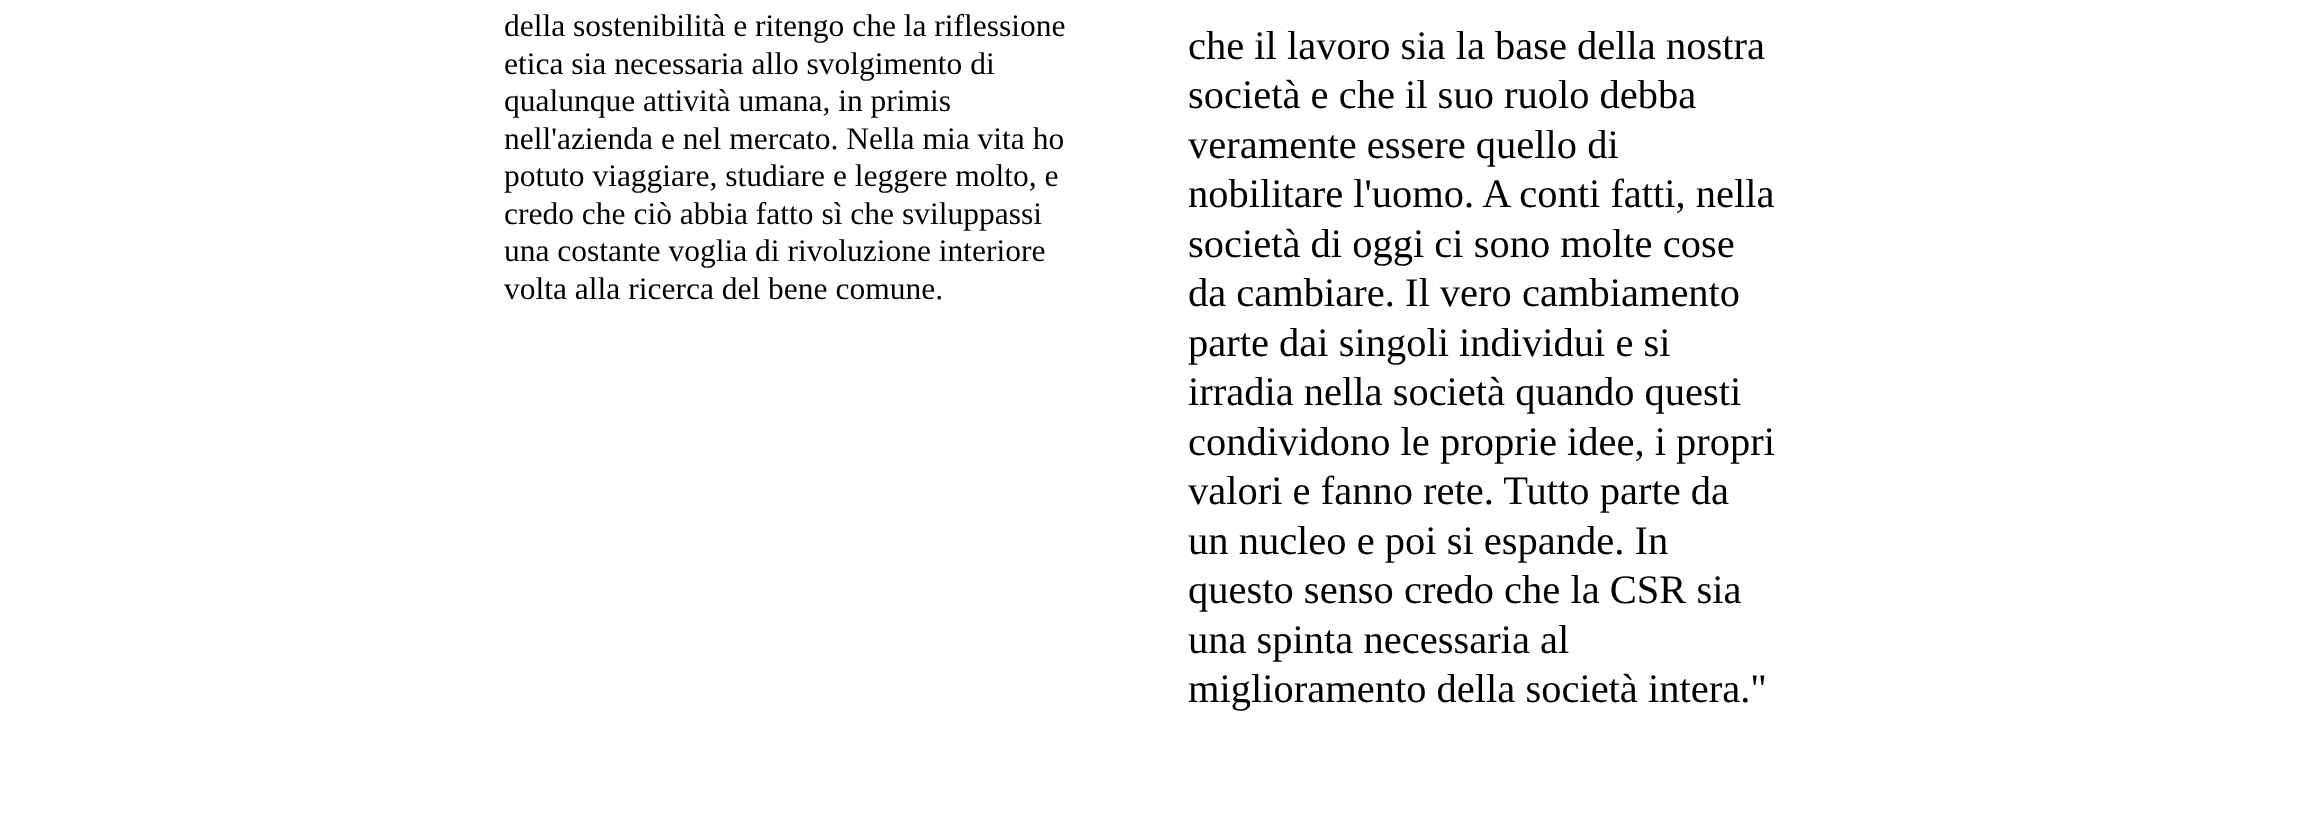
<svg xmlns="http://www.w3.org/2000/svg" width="2297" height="822">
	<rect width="100%" height="100%" fill="#FFFFFF" />
	<g font-family="Liberation Serif" font-size="31.5" fill="#000000">
		<text x="504" y="36">della sostenibilità e ritengo che la riflessione</text>
		<text x="504" y="74">etica sia necessaria allo svolgimento di</text>
		<text x="504" y="111">qualunque attività umana, in primis</text>
		<text x="504" y="149">nell'azienda e nel mercato. Nella mia vita ho</text>
		<text x="504" y="186">potuto viaggiare, studiare e leggere molto, e</text>
		<text x="504" y="224">credo che ciò abbia fatto sì che sviluppassi</text>
		<text x="504" y="261">una costante voglia di rivoluzione interiore</text>
		<text x="504" y="299">volta alla ricerca del bene comune.</text>
	</g>
	<g font-family="Liberation Serif" font-size="40.5" fill="#000000">
		<text x="1188" y="59">che il lavoro sia la base della nostra</text>
		<text x="1188" y="108">società e che il suo ruolo debba</text>
		<text x="1188" y="158">veramente essere quello di</text>
		<text x="1188" y="207">nobilitare l'uomo. A conti fatti, nella</text>
		<text x="1188" y="257">società di oggi ci sono molte cose</text>
		<text x="1188" y="306">da cambiare. Il vero cambiamento</text>
		<text x="1188" y="356">parte dai singoli individui e si</text>
		<text x="1188" y="405">irradia nella società quando questi</text>
		<text x="1188" y="455">condividono le proprie idee, i propri</text>
		<text x="1188" y="504">valori e fanno rete. Tutto parte da</text>
		<text x="1188" y="554">un nucleo e poi si espande. In</text>
		<text x="1188" y="603">questo senso credo che la CSR sia</text>
		<text x="1188" y="653">una spinta necessaria al</text>
		<text x="1188" y="702">miglioramento della società intera."</text>
	</g>
</svg>
